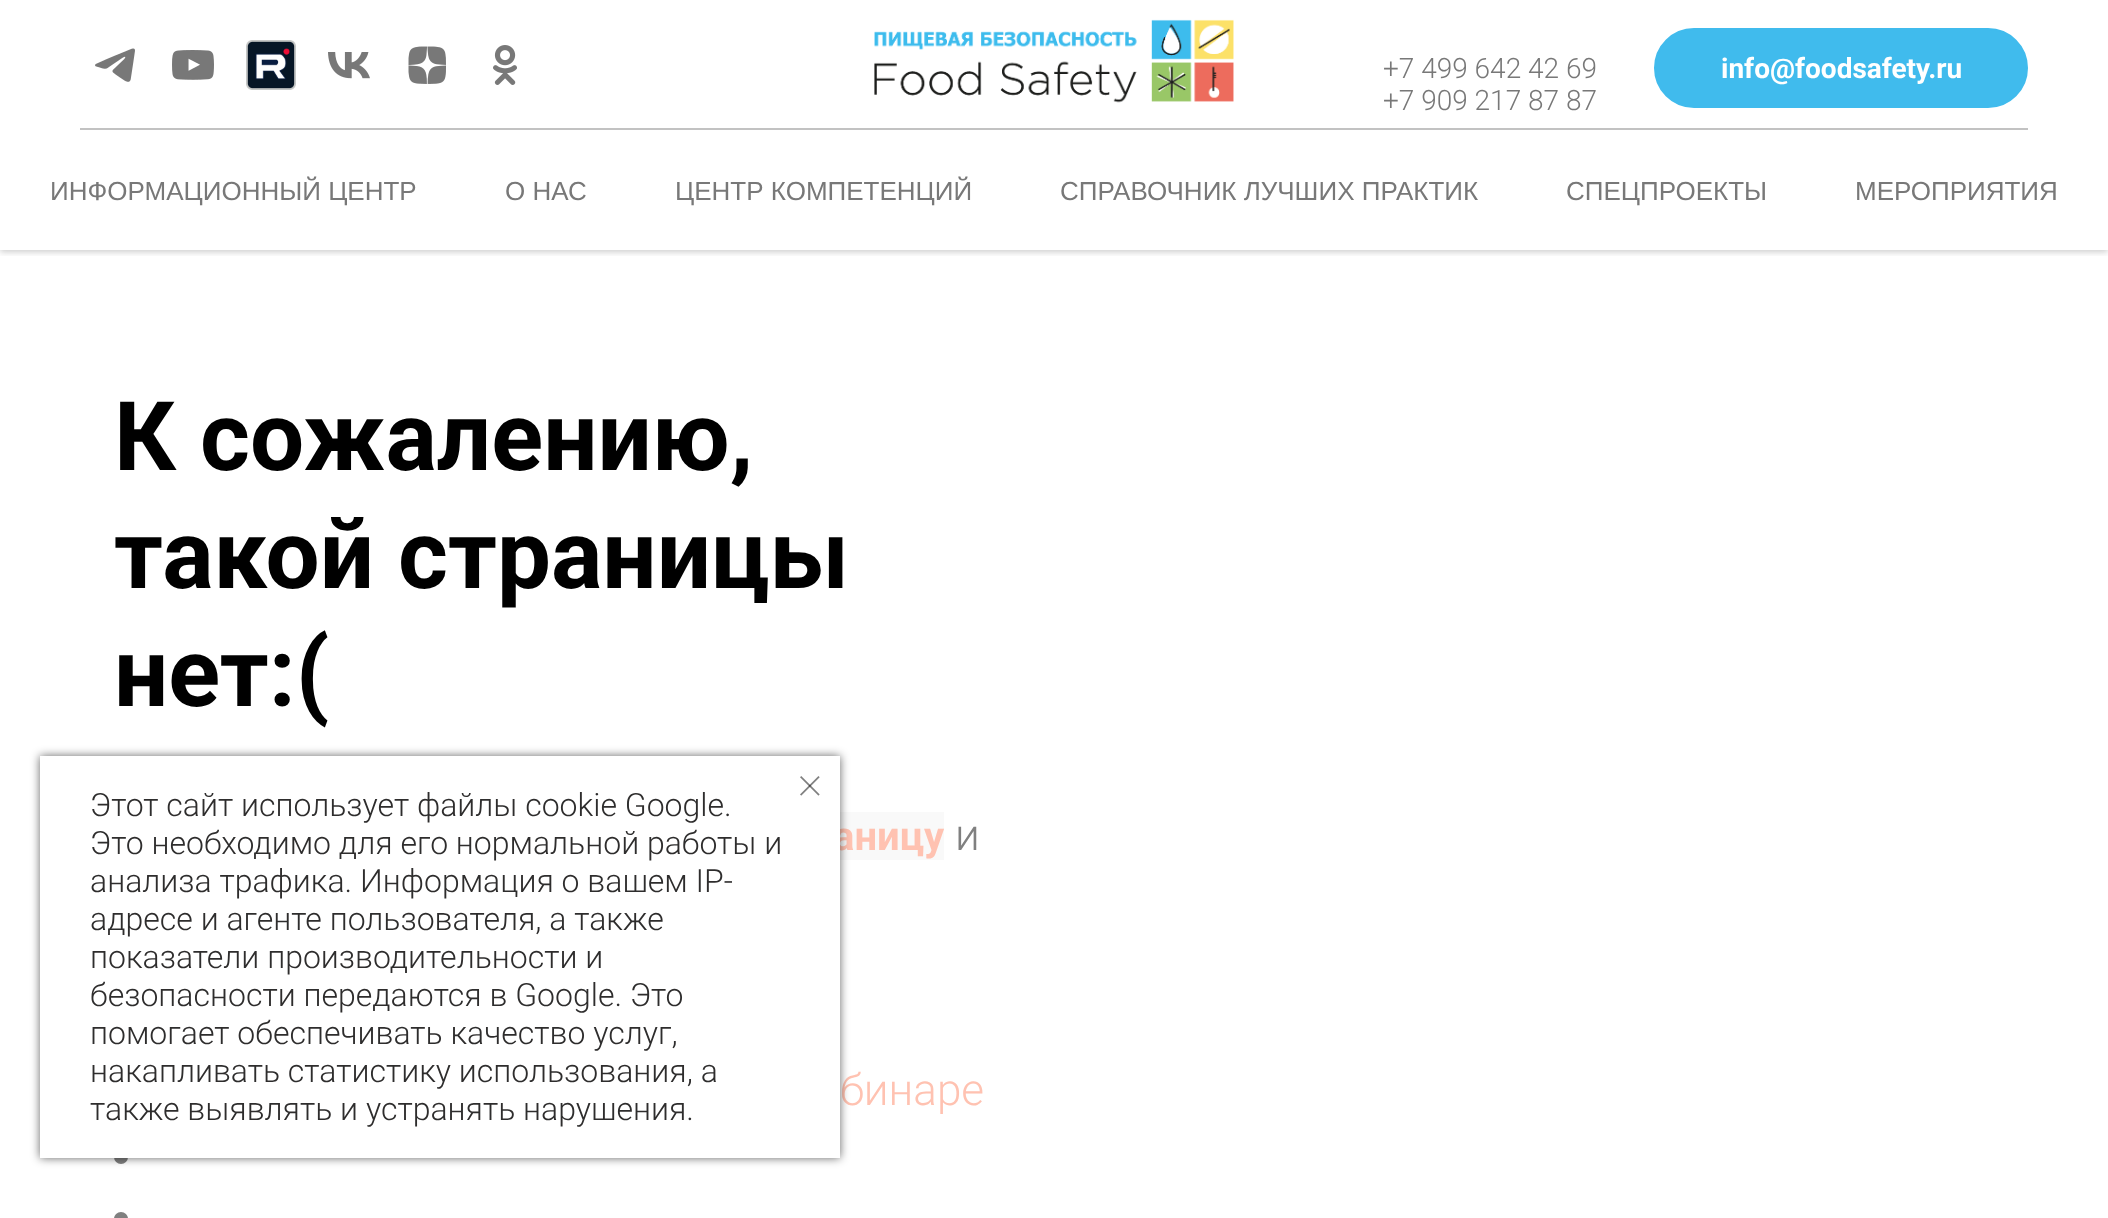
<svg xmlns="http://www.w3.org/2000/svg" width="2108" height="1218">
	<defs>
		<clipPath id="clip1"><rect x="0" y="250" width="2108" height="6" /></clipPath>
	</defs>
	<rect width="100%" height="100%" fill="#FFFFFF" />
	<g clip-path="url(#clip1)">
		<rect x="0" y="2" width="2108" height="250" fill="#000000" fill-opacity="0.2" filter="blur(3px)" />
	</g>
	<image x="874" y="19" width="360" height="84" href="assets/img1.png" />
	<image x="95" y="48" width="40" height="34" href="assets/img2.png" />
	<image x="172" y="50" width="42" height="30" href="assets/img3.png" />
	<image x="246" y="40" width="50" height="50" href="assets/img4.png" />
	<image x="328" y="52" width="42" height="27" href="assets/img5.png" />
	<image x="408" y="46" width="38" height="38" href="assets/img6.png" />
	<image x="493" y="45" width="24" height="40" href="assets/img7.png" />
	<g font-family="Roboto" font-size="28" font-weight="300" fill="#787878">
		<text x="1383" y="78">+7 499 642 42 69</text>
		<text x="1383" y="110">+7 909 217 87 87</text>
	</g>
	<rect x="1655" y="29" width="372" height="78" rx="39" fill="#40BBED" stroke="#40BBED" stroke-width="2" />
	<text x="1721" y="78" font-family="Roboto" font-size="28" font-weight="700" fill="#FFFFFF">info@foodsafety.ru</text>
	<rect x="80" y="128" width="1948" height="2" fill="#C2C2C2" />
	<g font-family="Liberation Sans" font-size="26" fill="#787878">
		<text x="50" y="200">ИНФОРМАЦИОННЫЙ ЦЕНТР</text>
		<text x="505" y="200">О НАС</text>
		<text x="675" y="200">ЦЕНТР КОМПЕТЕНЦИЙ</text>
		<text x="1060" y="200">СПРАВОЧНИК ЛУЧШИХ ПРАКТИК</text>
		<text x="1566" y="200">СПЕЦПРОЕКТЫ</text>
		<text x="1855" y="200">МЕРОПРИЯТИЯ</text>
	</g>
	<g font-family="Roboto" font-size="96" font-weight="700" fill="#000000">
		<text x="114" y="470">К сожалению,</text>
		<text x="114" y="588">такой страницы</text>
		<text x="114" y="706">нет:(</text>
	</g>
	<rect x="840" y="812" width="104" height="48" fill="#F9F9F9" />
	<text x="833" y="850" font-family="Roboto" font-size="40" font-weight="700" fill="#FFC2B1">аницу</text>
	<text x="955" y="850" font-family="Roboto" font-size="44" font-weight="300" fill="#808080">и</text>
	<text x="840" y="1105" font-family="Roboto" font-size="44" font-weight="300" fill="#FFC2B1">бинаре</text>
	<circle cx="121" cy="1157" r="7" fill="#808080" />
	<rect x="114" y="1212" width="14" height="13" rx="7" fill="#808080" />
	<rect x="40" y="756" width="800" height="402" fill="#000000" fill-opacity="0.6" filter="blur(5px)" />
	<rect x="40" y="756" width="800" height="402" fill="#FFFFFF" />
	<image x="800" y="776" width="20" height="20" href="assets/img8.png" />
	<g font-family="Roboto" font-size="32" font-weight="300" fill="#2E2D2D">
		<text x="90" y="816">Этот сайт использует файлы cookie Google.</text>
		<text x="90" y="854">Это необходимо для его нормальной работы и</text>
		<text x="90" y="892">анализа трафика. Информация о вашем IP-</text>
		<text x="90" y="930">адресе и агенте пользователя, а также</text>
		<text x="90" y="968">показатели производительности и</text>
		<text x="90" y="1006">безопасности передаются в Google. Это</text>
		<text x="90" y="1044">помогает обеспечивать качество услуг,</text>
		<text x="90" y="1082">накапливать статистику использования, а</text>
		<text x="90" y="1120">также выявлять и устранять нарушения.</text>
	</g>
</svg>
